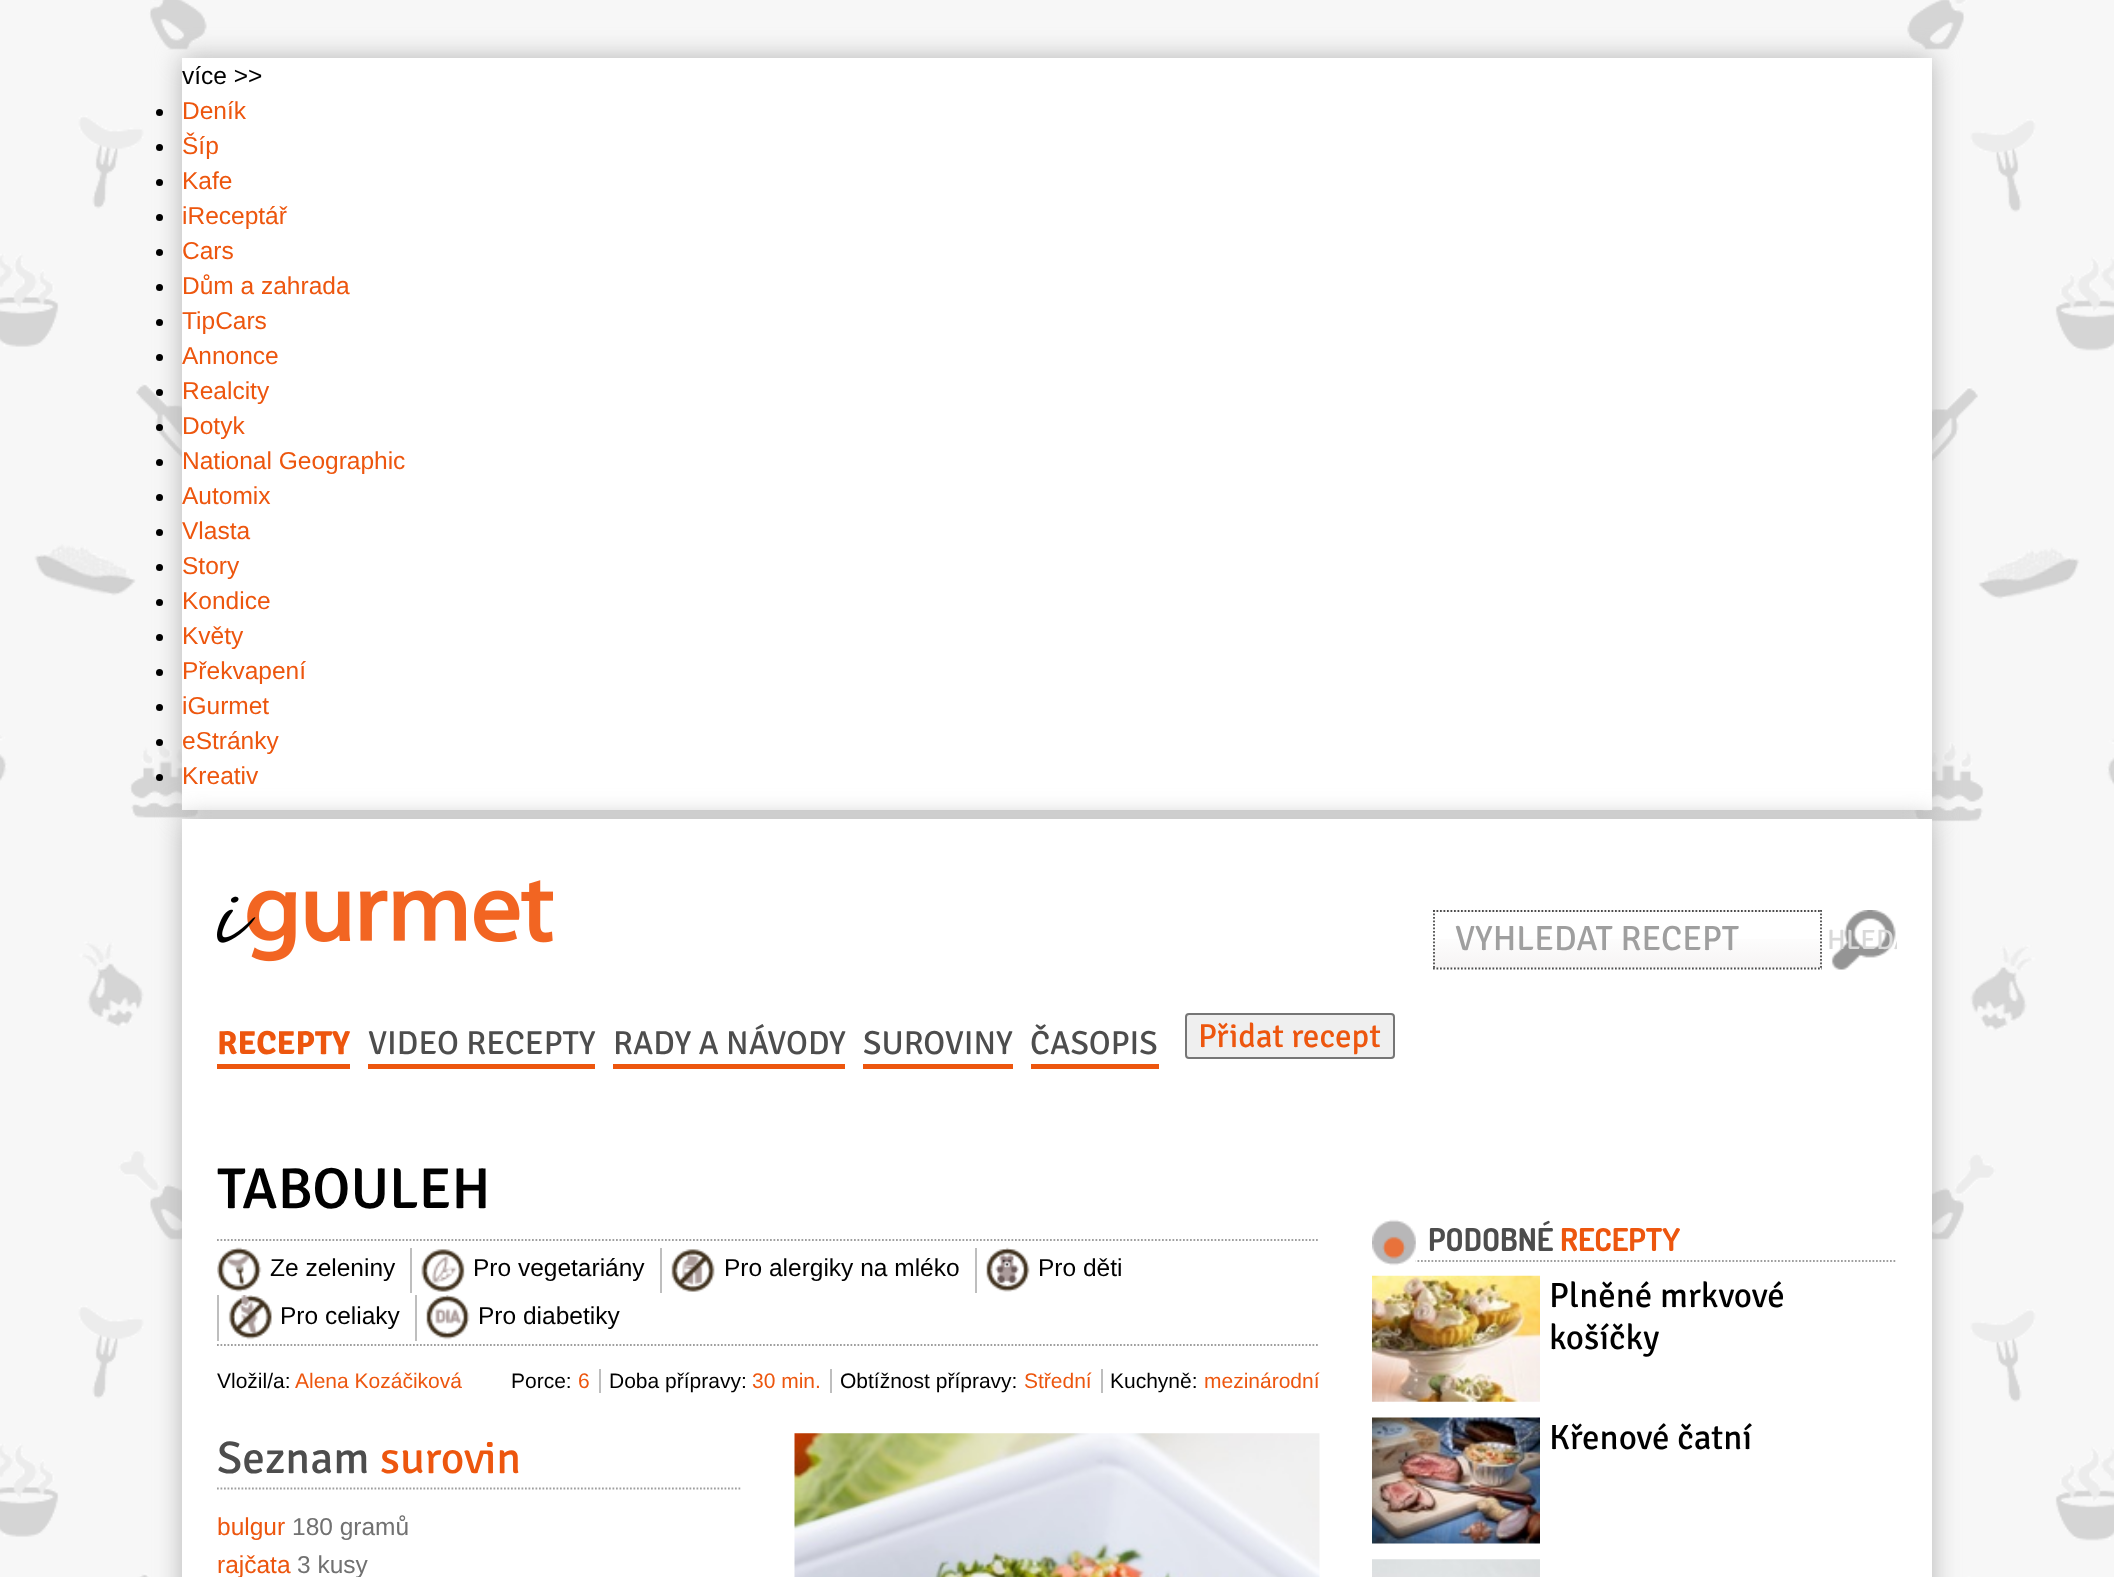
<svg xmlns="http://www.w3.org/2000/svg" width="2114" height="1577">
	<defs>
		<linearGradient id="g1" gradientUnits="userSpaceOnUse" x1="1628" y1="856" x2="1628" y2="912"><stop offset="0" stop-color="#FFFFFF" /><stop offset="0.33" stop-color="#FFFFFF" /><stop offset="1" stop-color="#F6F4F4" /></linearGradient>
		<linearGradient id="g2" gradientUnits="userSpaceOnUse" x1="1628" y1="912" x2="1628" y2="968"><stop offset="0" stop-color="#FFFFFF" /><stop offset="0.33" stop-color="#FFFFFF" /><stop offset="1" stop-color="#F6F4F4" /></linearGradient>
		<clipPath id="clip1"><rect x="1827" y="910" width="70" height="60" /></clipPath>
	</defs>
	<rect width="100%" height="100%" fill="#F7F7F7" />
	<image x="0" y="0" width="2114" height="1577" href="assets/img1.png" />
	<rect x="182" y="58" width="1750" height="752" fill="#B3B3B3" filter="blur(13px)" />
	<rect x="182" y="58" width="1750" height="752" fill="#FFFFFF" />
	<text x="182" y="84" font-family="Liberation Sans" font-size="24.5" fill="#000000">více &gt;&gt;</text>
	<circle cx="159.5" cy="112.5" r="3.5" fill="#000000" />
	<text x="182" y="119" font-family="Liberation Sans" font-size="24.5" fill="#ED560E">Deník</text>
	<circle cx="159.5" cy="147.5" r="3.5" fill="#000000" />
	<text x="182" y="154" font-family="Liberation Sans" font-size="24.5" fill="#ED560E">Šíp</text>
	<circle cx="159.5" cy="182.5" r="3.5" fill="#000000" />
	<text x="182" y="189" font-family="Liberation Sans" font-size="24.5" fill="#ED560E">Kafe</text>
	<circle cx="159.5" cy="217.5" r="3.5" fill="#000000" />
	<text x="182" y="224" font-family="Liberation Sans" font-size="24.5" fill="#ED560E">iReceptář</text>
	<circle cx="159.5" cy="252.5" r="3.5" fill="#000000" />
	<text x="182" y="259" font-family="Liberation Sans" font-size="24.5" fill="#ED560E">Cars</text>
	<circle cx="159.5" cy="287.5" r="3.5" fill="#000000" />
	<text x="182" y="294" font-family="Liberation Sans" font-size="24.5" fill="#ED560E">Dům a zahrada</text>
	<circle cx="159.5" cy="322.5" r="3.5" fill="#000000" />
	<text x="182" y="329" font-family="Liberation Sans" font-size="24.5" fill="#ED560E">TipCars</text>
	<circle cx="159.5" cy="357.5" r="3.5" fill="#000000" />
	<text x="182" y="364" font-family="Liberation Sans" font-size="24.5" fill="#ED560E">Annonce</text>
	<circle cx="159.5" cy="392.5" r="3.5" fill="#000000" />
	<text x="182" y="399" font-family="Liberation Sans" font-size="24.5" fill="#ED560E">Realcity</text>
	<circle cx="159.5" cy="427.5" r="3.5" fill="#000000" />
	<text x="182" y="434" font-family="Liberation Sans" font-size="24.5" fill="#ED560E">Dotyk</text>
	<circle cx="159.5" cy="462.5" r="3.5" fill="#000000" />
	<text x="182" y="469" font-family="Liberation Sans" font-size="24.5" fill="#ED560E">National Geographic</text>
	<circle cx="159.5" cy="497.5" r="3.5" fill="#000000" />
	<text x="182" y="504" font-family="Liberation Sans" font-size="24.5" fill="#ED560E">Automix</text>
	<circle cx="159.5" cy="532.5" r="3.5" fill="#000000" />
	<text x="182" y="539" font-family="Liberation Sans" font-size="24.5" fill="#ED560E">Vlasta</text>
	<circle cx="159.5" cy="567.5" r="3.5" fill="#000000" />
	<text x="182" y="574" font-family="Liberation Sans" font-size="24.5" fill="#ED560E">Story</text>
	<circle cx="159.5" cy="602.5" r="3.5" fill="#000000" />
	<text x="182" y="609" font-family="Liberation Sans" font-size="24.5" fill="#ED560E">Kondice</text>
	<circle cx="159.5" cy="637.5" r="3.5" fill="#000000" />
	<text x="182" y="644" font-family="Liberation Sans" font-size="24.5" fill="#ED560E">Květy</text>
	<circle cx="159.5" cy="672.5" r="3.5" fill="#000000" />
	<text x="182" y="679" font-family="Liberation Sans" font-size="24.5" fill="#ED560E">Překvapení</text>
	<circle cx="159.5" cy="707.5" r="3.5" fill="#000000" />
	<text x="182" y="714" font-family="Liberation Sans" font-size="24.5" fill="#ED560E">iGurmet</text>
	<circle cx="159.5" cy="742.5" r="3.5" fill="#000000" />
	<text x="182" y="749" font-family="Liberation Sans" font-size="24.5" fill="#ED560E">eStránky</text>
	<circle cx="159.5" cy="777.5" r="3.5" fill="#000000" />
	<text x="182" y="784" font-family="Liberation Sans" font-size="24.5" fill="#ED560E">Kreativ</text>
	<rect x="182" y="819" width="1750" height="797" fill="#B3B3B3" filter="blur(13px)" />
	<rect x="182" y="819" width="1750" height="758" fill="#FFFFFF" />
	<image x="217" y="880" width="336" height="82" href="assets/img2.png" />
	<rect x="1433" y="910" width="389" height="2" fill="url(#g1)" />
	<rect x="1433" y="939" width="389" height="29" fill="url(#g2)" />
	<path d="M1433 911H1822" fill="none" stroke="#4B4B4B" stroke-width="1.8" stroke-dasharray="1.75 1.75" />
	<path d="M1821 910V969.5" fill="none" stroke="#4B4B4B" stroke-width="1.8" stroke-dasharray="1.75 1.75" />
	<path d="M1433 968.5H1822" fill="none" stroke="#4B4B4B" stroke-width="1.8" stroke-dasharray="1.75 1.75" />
	<path d="M1434 910V969.5" fill="none" stroke="#4B4B4B" stroke-width="1.8" stroke-dasharray="1.75 1.75" />
	<text x="1455" y="950" font-family="Signika" font-size="35" fill="#9F9F9F">VYHLEDAT RECEPT</text>
	<image x="1831" y="910" width="65" height="60" href="assets/img3.png" />
	<g clip-path="url(#clip1)">
		<text x="1827" y="949" font-family="Signika" font-size="28" fill="#D9D9D9">HLEDA</text>
	</g>
	<rect x="217" y="1064" width="133" height="5" fill="#ED560E" />
	<text x="217" y="1054" font-family="Signika" font-size="33.25" font-weight="700" fill="#ED560E">RECEPTY</text>
	<rect x="368" y="1064" width="227" height="5" fill="#ED560E" />
	<text x="368" y="1054" font-family="Signika" font-size="33.25" fill="#4D4D4D">VIDEO RECEPTY</text>
	<rect x="613" y="1064" width="232" height="5" fill="#ED560E" />
	<text x="613" y="1054" font-family="Signika" font-size="33.25" fill="#4D4D4D">RADY A NÁVODY</text>
	<rect x="863" y="1064" width="150" height="5" fill="#ED560E" />
	<text x="863" y="1054" font-family="Signika" font-size="33.25" fill="#4D4D4D">SUROVINY</text>
	<rect x="1031" y="1064" width="128" height="5" fill="#ED560E" />
	<text x="1030" y="1054" font-family="Signika" font-size="33.25" fill="#4D4D4D">ČASOPIS</text>
	<rect x="1186" y="1014" width="208" height="44" rx="3" fill="#EFEFEF" stroke="#767676" stroke-width="2" />
	<text x="1198" y="1047" font-family="Signika" font-size="33.25" fill="#ED560E">Přidat recept</text>
	<text x="217" y="1208" font-family="Signika" font-size="57.75" font-weight="500" fill="#000000">TABOULEH</text>
	<path d="M217 1240H1319.5" fill="none" stroke="#9F9F9F" stroke-width="1.8" stroke-dasharray="1.75 1.75" />
	<path d="M217 1345H1319.5" fill="none" stroke="#9F9F9F" stroke-width="1.8" stroke-dasharray="1.75 1.75" />
	<image x="217" y="1247" width="45" height="45" href="assets/img4.png" />
	<text x="270" y="1276" font-family="Liberation Sans" font-size="24.5" fill="#000000">Ze zeleniny</text>
	<rect x="410" y="1248" width="2" height="45" fill="#BEBEBE" />
	<image x="421" y="1249" width="44" height="43" href="assets/img5.png" />
	<text x="473" y="1276" font-family="Liberation Sans" font-size="24.5" fill="#000000">Pro vegetariány</text>
	<rect x="660" y="1248" width="2" height="45" fill="#BEBEBE" />
	<image x="671" y="1249" width="44" height="43" href="assets/img6.png" />
	<text x="724" y="1276" font-family="Liberation Sans" font-size="24.5" fill="#000000">Pro alergiky na mléko</text>
	<rect x="975" y="1248" width="2" height="45" fill="#BEBEBE" />
	<image x="986" y="1247" width="44" height="45" href="assets/img7.png" />
	<text x="1038" y="1276" font-family="Liberation Sans" font-size="24.5" fill="#000000">Pro děti</text>
	<rect x="217" y="1295" width="2" height="46" fill="#BEBEBE" />
	<image x="228" y="1295" width="44" height="45" href="assets/img8.png" />
	<text x="280" y="1324" font-family="Liberation Sans" font-size="24.5" fill="#000000">Pro celiaky</text>
	<rect x="415" y="1295" width="2" height="46" fill="#BEBEBE" />
	<image x="426" y="1295" width="44" height="45" href="assets/img9.png" />
	<text x="478" y="1324" font-family="Liberation Sans" font-size="24.5" fill="#000000">Pro diabetiky</text>
	<text x="217" y="1388" font-family="Liberation Sans" font-size="21" fill="#000000">Vložil/a:</text>
	<text x="295" y="1388" font-family="Liberation Sans" font-size="21" fill="#ED560E">Alena Kozáčiková</text>
	<text x="511" y="1388" font-family="Liberation Sans" font-size="21" fill="#000000">Porce:</text>
	<text x="578" y="1388" font-family="Liberation Sans" font-size="21" fill="#ED560E">6</text>
	<rect x="599" y="1369" width="2" height="24" fill="#BEBEBE" />
	<text x="609" y="1388" font-family="Liberation Sans" font-size="21" fill="#000000">Doba přípravy:</text>
	<text x="752" y="1388" font-family="Liberation Sans" font-size="21" fill="#ED560E">30 min.</text>
	<rect x="830" y="1369" width="2" height="24" fill="#BEBEBE" />
	<text x="840" y="1388" font-family="Liberation Sans" font-size="21" fill="#000000">Obtížnost přípravy:</text>
	<text x="1024" y="1388" font-family="Liberation Sans" font-size="21" fill="#ED560E">Střední</text>
	<rect x="1101" y="1369" width="2" height="24" fill="#BEBEBE" />
	<text x="1110" y="1388" font-family="Liberation Sans" font-size="21" fill="#000000">Kuchyně:</text>
	<text x="1204" y="1388" font-family="Liberation Sans" font-size="21" fill="#ED560E">mezinárodní</text>
	<path d="M217 1488.5H742" fill="none" stroke="#9F9F9F" stroke-width="1.8" stroke-dasharray="1.75 1.75" />
	<text x="217" y="1473" font-family="Signika" font-size="45.5" fill="#4D4D4D">Seznam</text>
	<text x="380" y="1473" font-family="Signika" font-size="45.5" fill="#ED560E">surovin</text>
	<text x="217" y="1535" font-family="Liberation Sans" font-size="24.5" fill="#ED560E">bulgur</text>
	<text x="292" y="1535" font-family="Liberation Sans" font-size="24.5" fill="#717171">180 gramů</text>
	<text x="217" y="1573" font-family="Liberation Sans" font-size="24.5" fill="#ED560E">rajčata</text>
	<text x="297" y="1573" font-family="Liberation Sans" font-size="24.5" fill="#717171">3 kusy</text>
	<image x="794" y="1433" width="526" height="144" href="assets/img10.png" />
	<path d="M1372 1261H1897" fill="none" stroke="#9F9F9F" stroke-width="1.8" stroke-dasharray="1.75 1.75" />
	<image x="1372" y="1219" width="44" height="47" href="assets/img11.png" />
	<text x="1428" y="1251" font-family="Dosis" font-size="31.5" font-weight="700" fill="#4D4D4D">PODOBNÉ</text>
	<text x="1560" y="1251" font-family="Dosis" font-size="31.5" font-weight="700" fill="#ED560E">RECEPTY</text>
	<image x="1372" y="1275" width="168" height="127" href="assets/img12.png" />
	<g font-family="Signika" font-size="35" fill="#000000">
		<text x="1549" y="1307">Plněné mrkvové</text>
		<text x="1549" y="1349">košíčky</text>
	</g>
	<image x="1372" y="1417" width="168" height="127" href="assets/img13.png" />
	<text x="1549" y="1449" font-family="Signika" font-size="35" fill="#000000">Křenové čatní</text>
	<image x="1372" y="1559" width="168" height="18" href="assets/img14.png" />
</svg>
